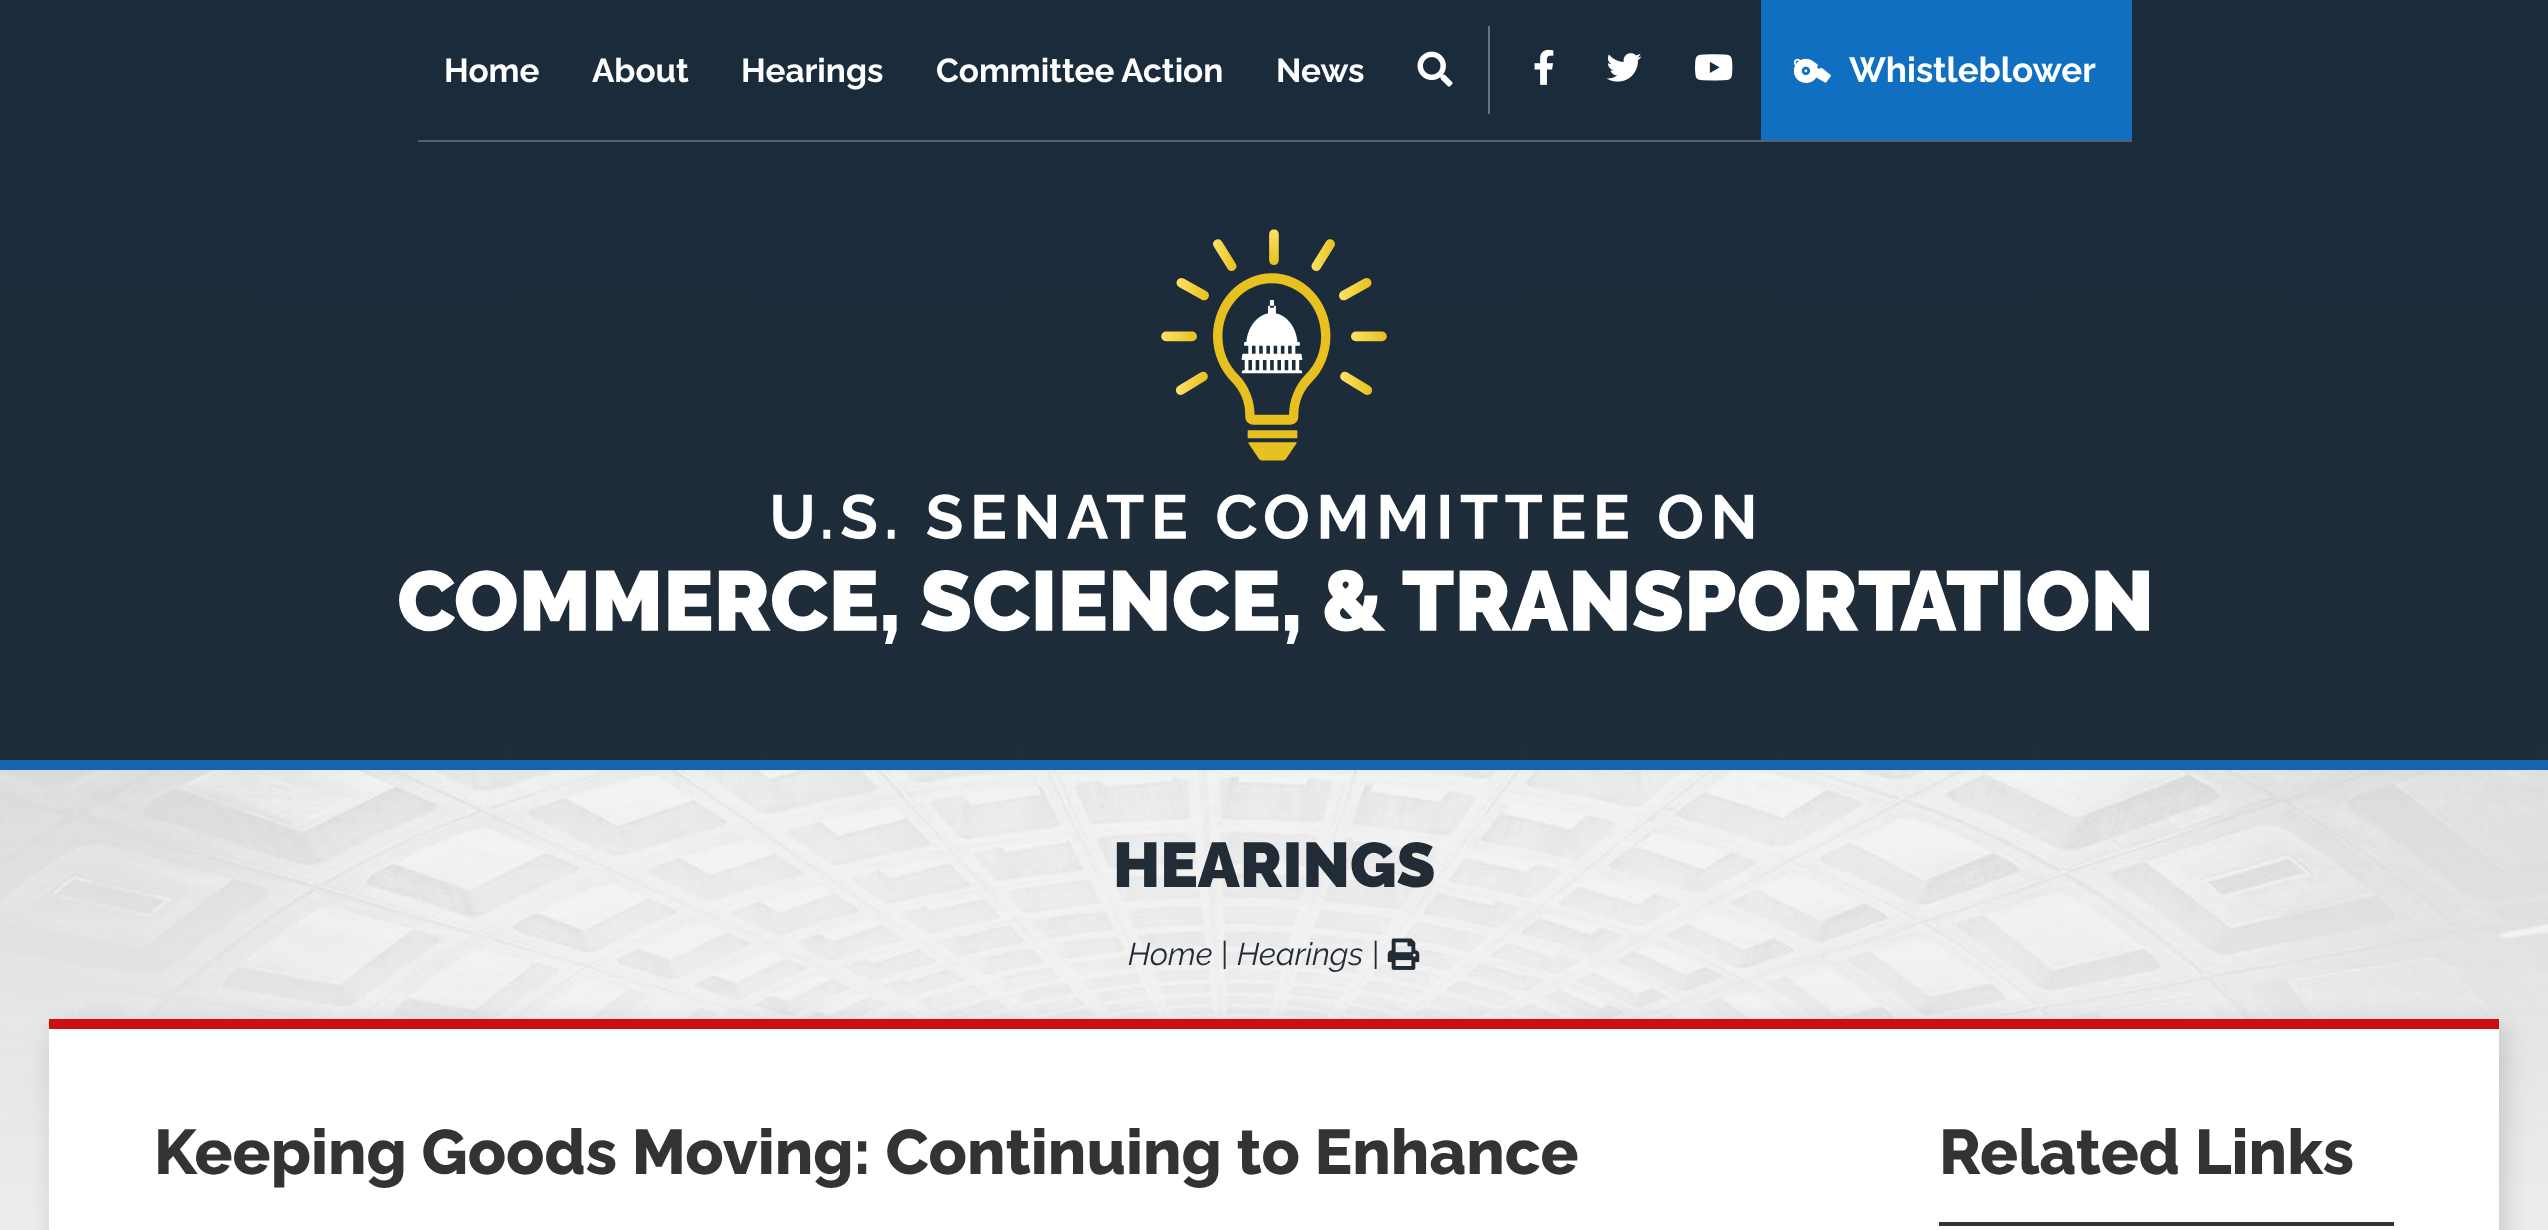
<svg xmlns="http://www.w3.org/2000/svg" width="2548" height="1230">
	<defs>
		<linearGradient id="g1" gradientUnits="userSpaceOnUse" x1="1274" y1="0" x2="1274" y2="770"><stop offset="0.1" stop-color="#1A2B3C" /><stop offset="0.6" stop-color="#1E2C3A" /><stop offset="1" stop-color="#1F2C39" /></linearGradient>
	</defs>
	<rect width="100%" height="100%" fill="#FFFFFF" />
	<rect x="0" y="0" width="2548" height="760" fill="url(#g1)" />
	<rect x="0" y="760" width="2548" height="10" fill="#1365AD" />
	<rect x="418" y="140" width="1714" height="2" fill="#54606D" />
	<g font-family="Raleway" font-size="33.25" font-weight="700" fill="#FFFFFF">
		<text x="444" y="82">Home</text>
		<text x="592" y="82">About</text>
		<text x="741" y="82">Hearings</text>
		<text x="936" y="82">Committee Action</text>
		<text x="1276" y="82">News</text>
	</g>
	<rect x="1488" y="26" width="2" height="88" fill="#6A7580" />
	<image x="1417" y="51" width="36" height="36" href="assets/img1.png" />
	<image x="1534" y="49" width="20" height="36" href="assets/img2.png" />
	<image x="1606" y="53" width="36" height="29" href="assets/img3.png" />
	<image x="1695" y="54" width="38" height="27" href="assets/img4.png" />
	<rect x="1761" y="0" width="371" height="140" fill="#116FC1" />
	<image x="1794" y="58" width="37" height="25" href="assets/img5.png" />
	<text x="1849" y="82" font-family="Raleway" font-size="35" font-weight="700" fill="#FFFFFF">Whistleblower</text>
	<image x="399" y="229" width="1750" height="415" href="assets/img6.png" />
	<image x="0" y="770" width="2548" height="460" href="assets/img7.png" />
	<text x="1113" y="887" font-family="Raleway" font-size="63" font-weight="900" fill="#222C36">HEARINGS</text>
	<text x="1128" y="965" font-family="Raleway" font-size="31.5" font-style="italic" fill="#222C36">Home</text>
	<text x="1221" y="965" font-family="Raleway" font-size="31.5" fill="#222C36">|</text>
	<text x="1237" y="965" font-family="Raleway" font-size="31.5" font-style="italic" fill="#222C36">Hearings</text>
	<text x="1372" y="965" font-family="Raleway" font-size="31.5" fill="#222C36">|</text>
	<image x="1387" y="938" width="33" height="32" href="assets/img8.png" />
	<rect x="54" y="1027" width="2450" height="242" fill="#000000" fill-opacity="0.16" filter="blur(13px)" />
	<rect x="49" y="1029" width="2450" height="201" fill="#FFFFFF" />
	<rect x="49" y="1019" width="2450" height="10" fill="#CE0F0F" />
	<text x="154" y="1174" font-family="Raleway" font-size="63" font-weight="800" fill="#333333">Keeping Goods Moving: Continuing to Enhance</text>
	<rect x="1939" y="1222" width="455" height="4" fill="#333333" />
	<text x="1939" y="1174" font-family="Raleway" font-size="63" font-weight="800" fill="#333333">Related Links</text>
</svg>
